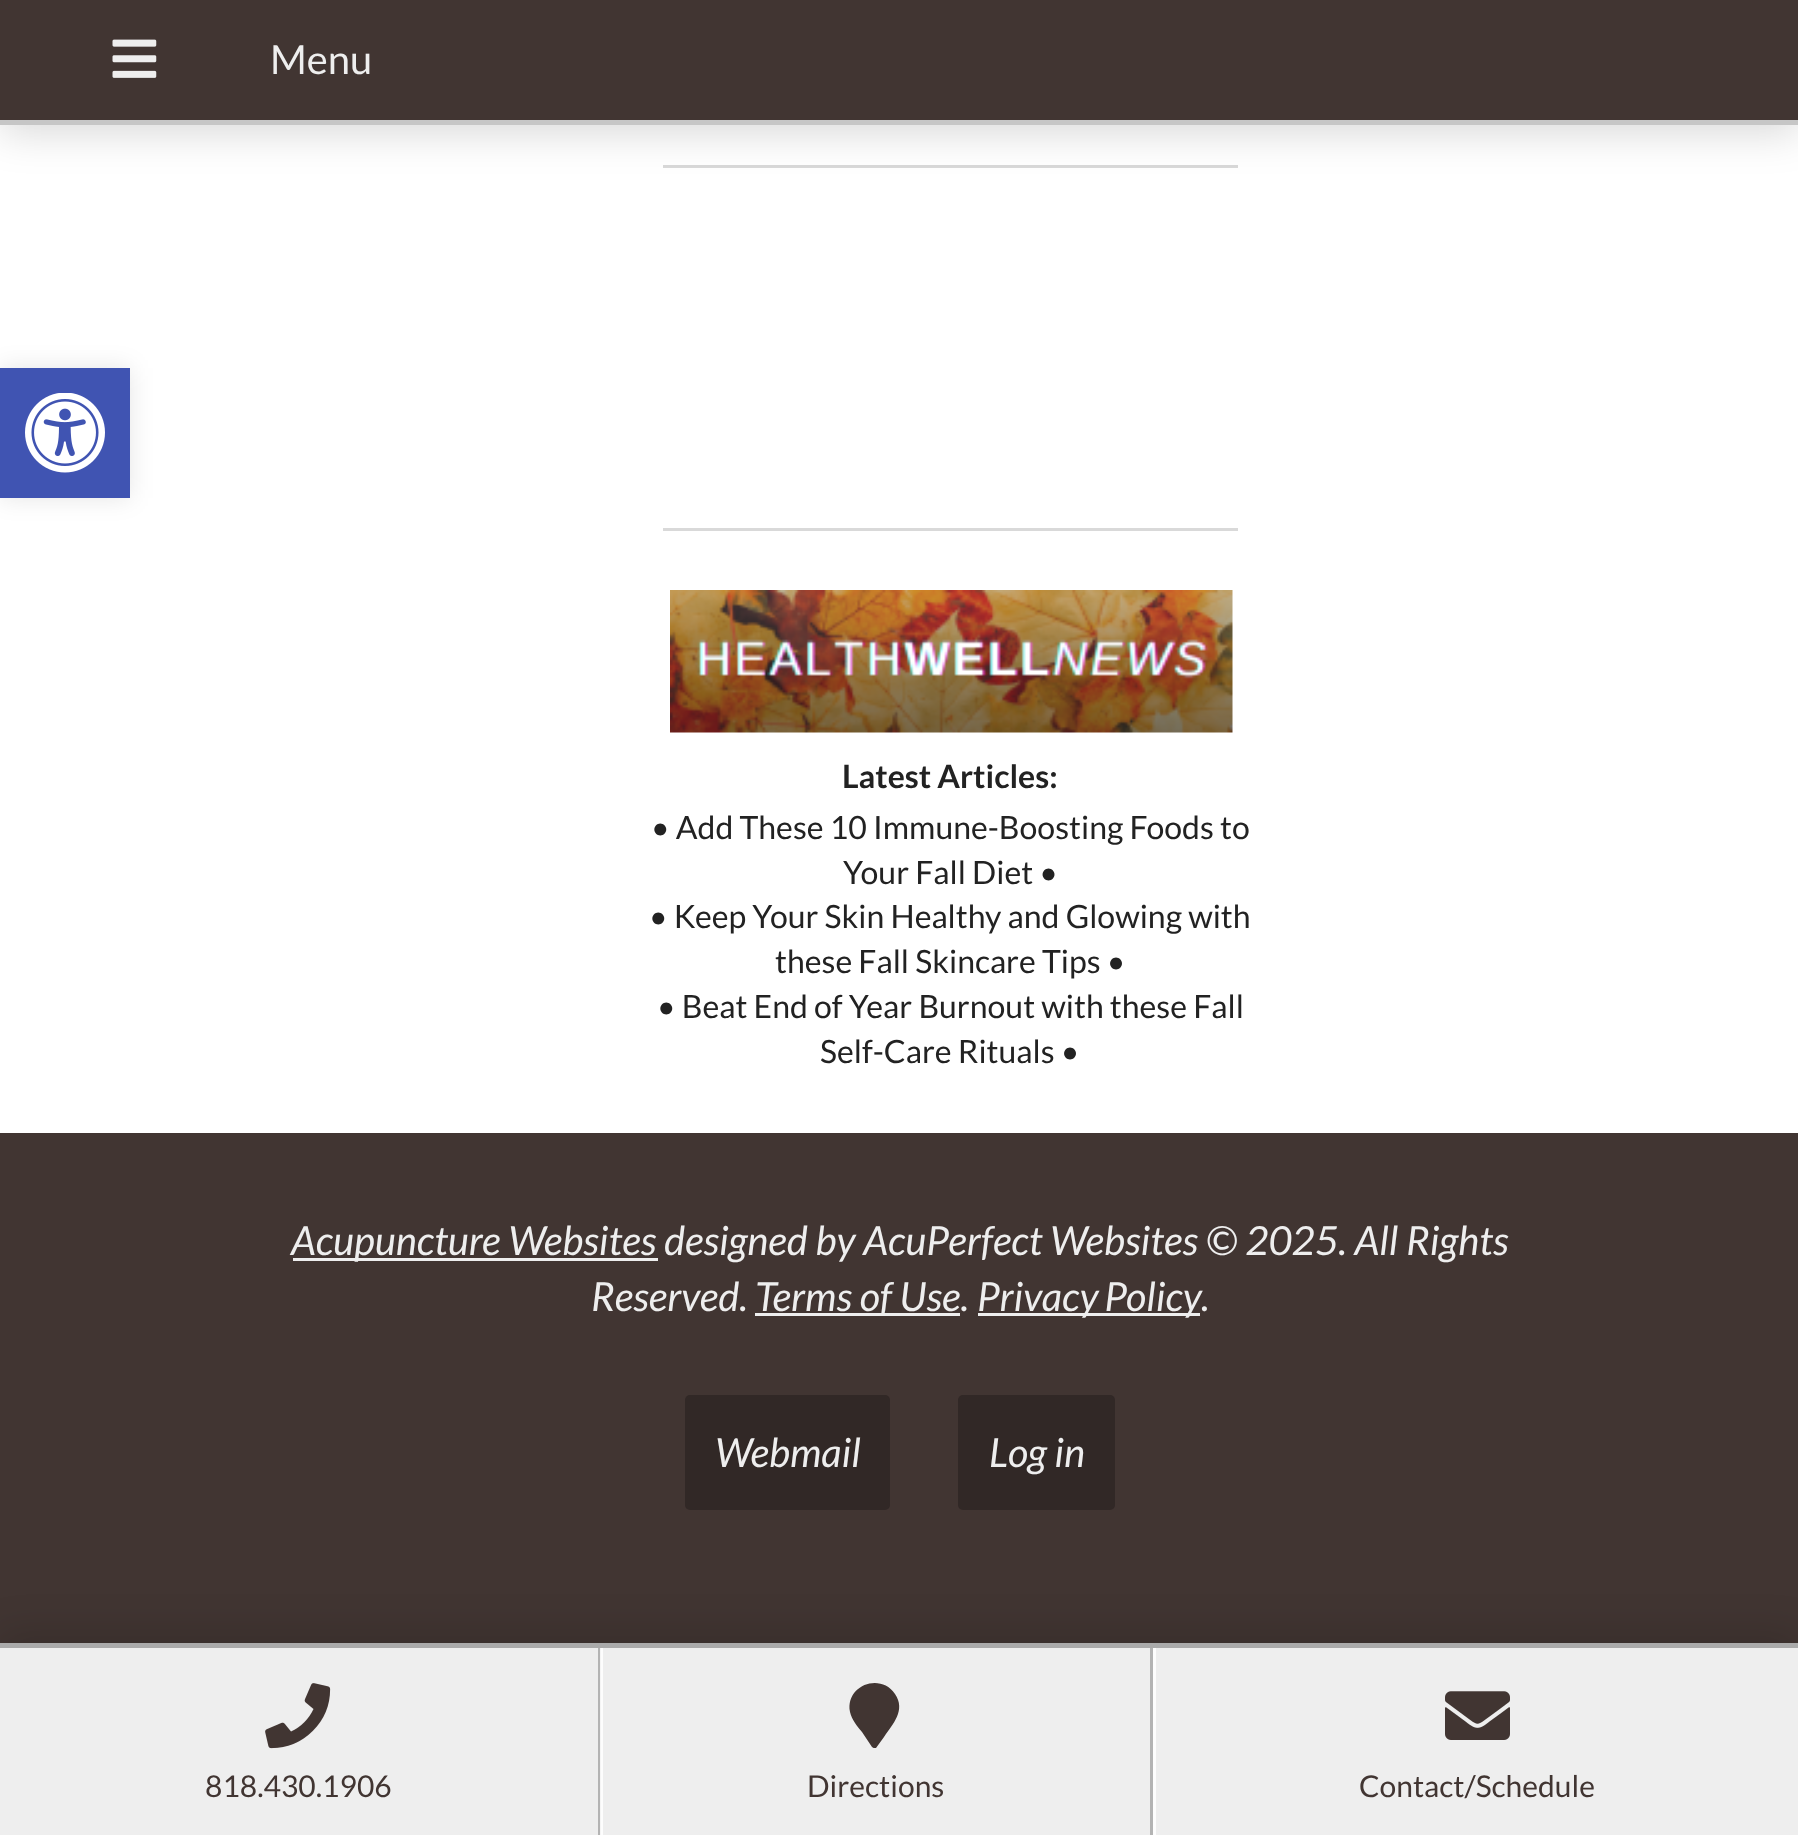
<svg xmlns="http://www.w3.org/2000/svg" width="1798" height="1835">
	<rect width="100%" height="100%" fill="#FFFFFF" />
	<rect x="0" y="368" width="130" height="130" fill="#000000" fill-opacity="0.1" filter="blur(12.5px)" />
	<rect x="0" y="368" width="130" height="130" fill="#4054B2" />
	<image x="25" y="393" width="80" height="80" href="assets/img1.png" />
	<rect x="663" y="165" width="575" height="3" fill="#D9D9D9" />
	<rect x="0" y="8" width="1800" height="125" fill="#000000" fill-opacity="0.15" filter="blur(20px)" />
	<rect x="0" y="0" width="1798" height="120" fill="#413532" />
	<rect x="0" y="120" width="1798" height="5" fill="#C6C6C6" />
	<image x="112" y="39" width="45" height="39" href="assets/img2.png" />
	<text x="270" y="74" font-family="Lato" font-size="40" fill="#EEEEEE">Menu</text>
	<rect x="663" y="528" width="575" height="3" fill="#D9D9D9" />
	<image x="670" y="590" width="563" height="143" href="assets/img3.png" />
	<text x="842" y="788" font-family="Lato" font-size="32" font-weight="700" fill="#222222">Latest Articles:</text>
	<g font-family="Lato" font-size="32" fill="#222222">
		<text x="651" y="839">• Add These 10 Immune-Boosting Foods to</text>
		<text x="843" y="884">Your Fall Diet •</text>
		<text x="649" y="928">• Keep Your Skin Healthy and Glowing with</text>
		<text x="775" y="973">these Fall Skincare Tips •</text>
		<text x="657" y="1018">• Beat End of Year Burnout with these Fall</text>
		<text x="820" y="1063">Self-Care Rituals •</text>
	</g>
	<rect x="0" y="1133" width="1798" height="510" fill="#413532" />
	<rect x="293" y="1258" width="365" height="3" fill="#EEEEEE" />
	<g font-family="Lato" font-size="40" font-style="italic" fill="#EEEEEE">
		<text x="291" y="1255">Acupuncture Websites designed by AcuPerfect Websites © 2025. All Rights</text>
		<text x="591" y="1311">Reserved.</text>
	</g>
	<rect x="755" y="1313" width="205" height="3" fill="#EEEEEE" />
	<text x="755" y="1311" font-family="Lato" font-size="40" font-style="italic" fill="#EEEEEE">Terms of Use.</text>
	<rect x="978" y="1313" width="222" height="3" fill="#EEEEEE" />
	<g font-family="Lato" font-size="40" font-style="italic" fill="#EEEEEE">
		<text x="977" y="1311" word-spacing="-2">Privacy Policy</text>
		<text x="1201" y="1311">.</text>
	</g>
	<rect x="685" y="1395" width="205" height="115" rx="5" fill="#312826" />
	<text x="715" y="1467" font-family="Lato" font-size="40" font-style="italic" fill="#EEEEEE">Webmail</text>
	<rect x="958" y="1395" width="157" height="115" rx="5" fill="#312826" />
	<text x="989" y="1467" font-family="Lato" font-size="40" font-style="italic" fill="#EEEEEE">Log in</text>
	<rect x="0" y="1635" width="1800" height="193" fill="#000000" fill-opacity="0.15" filter="blur(20px)" />
	<rect x="0" y="1648" width="1798" height="187" fill="#EEEEEE" />
	<rect x="601" y="1648" width="2" height="187" fill="#FDFDFD" />
	<rect x="0" y="1643" width="1798" height="5" fill="#AAAAAA" />
	<rect x="598" y="1648" width="2" height="187" fill="#B3B3B3" />
	<rect x="600" y="1648" width="1" height="187" fill="#F5F5F5" />
	<image x="265" y="1683" width="66" height="66" href="assets/img4.png" />
	<text x="205" y="1797" font-family="Lato" font-size="30" fill="#413532">818.430.1906</text>
	<rect x="1150" y="1648" width="3" height="187" fill="#B3B3B3" />
	<path d="M872 1747L862 1732C857 1726 852 1720 850 1712C845 1686 880 1672 895 1694C906 1710 893 1724 884 1737L876 1748C874 1748 873 1748 872 1747Z" fill="#413532" />
	<text x="807" y="1797" font-family="Lato" font-size="30" fill="#413532">Directions</text>
	<rect x="1153" y="1648" width="3" height="187" fill="#FDFDFD" />
	<image x="1445" y="1691" width="65" height="49" href="assets/img5.png" />
	<text x="1359" y="1797" font-family="Lato" font-size="30" fill="#413532">Contact/Schedule</text>
</svg>
